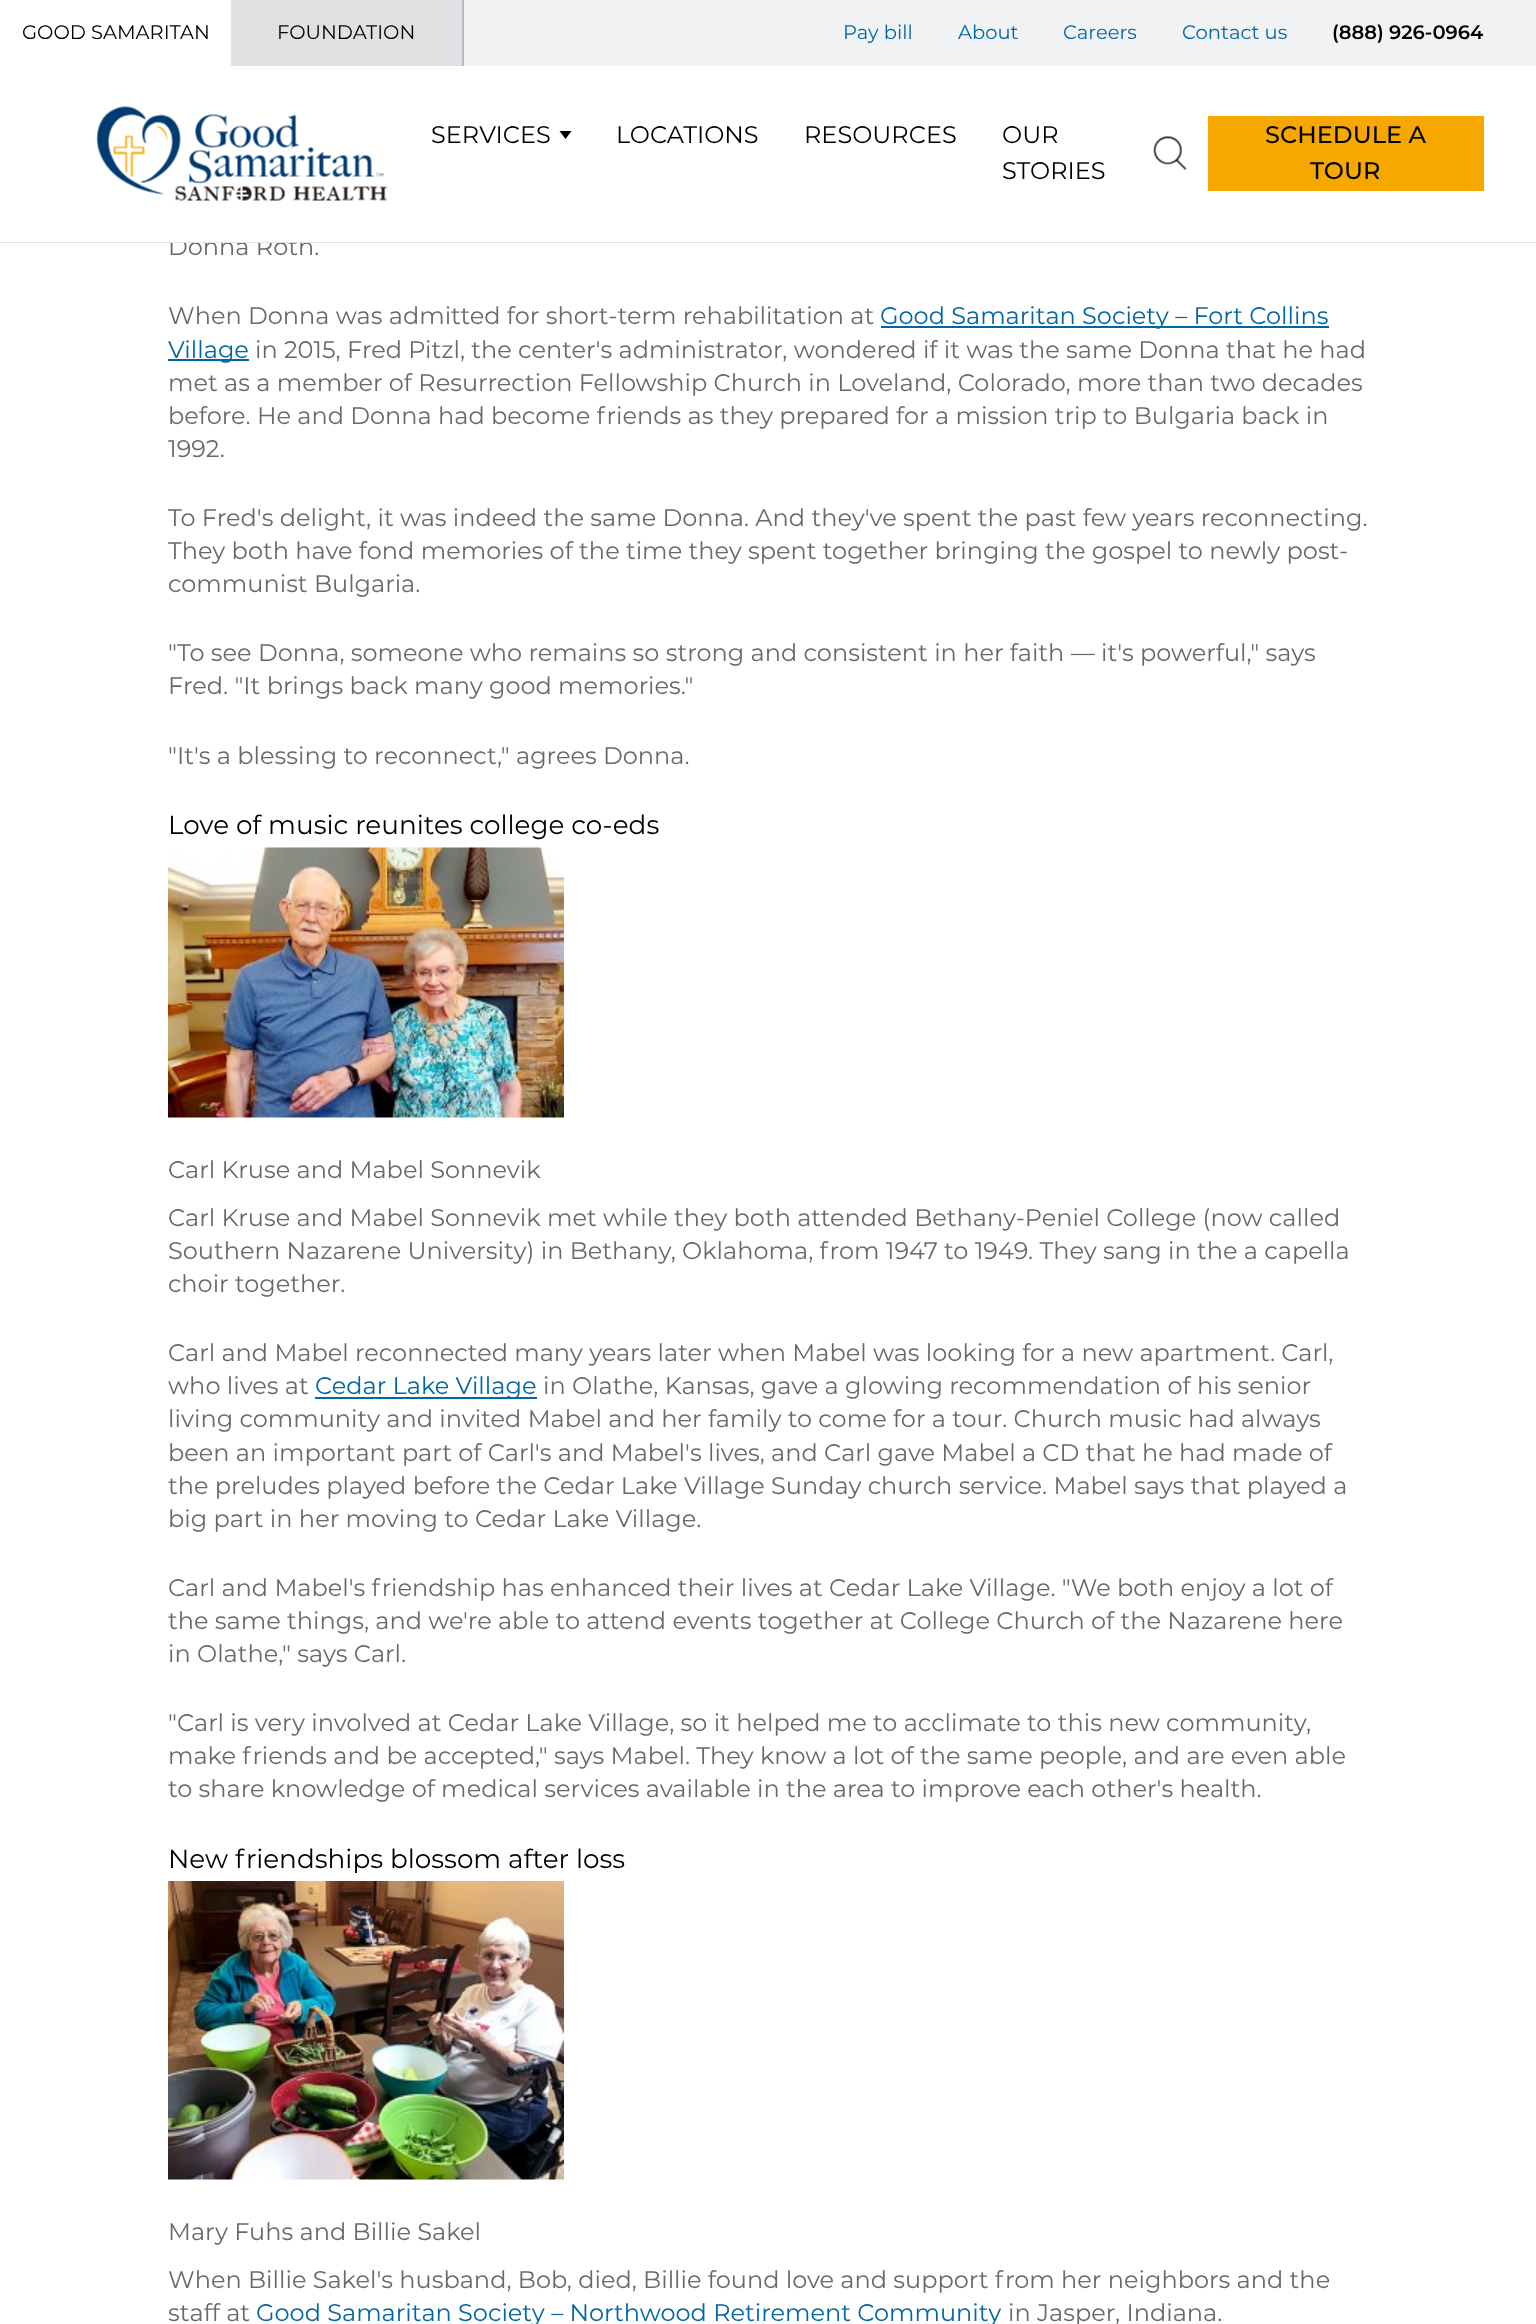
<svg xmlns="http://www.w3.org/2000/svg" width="1536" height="2324">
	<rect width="100%" height="100%" fill="#FFFFFF" />
	<text x="168" y="255" font-family="Montserrat" font-size="24" fill="#666A6F">Donna Roth.</text>
	<rect x="0" y="242" width="1536" height="1" fill="#DFE1E2" />
	<rect x="170" y="237" width="133" height="5" fill="#FFFFFF" />
	<rect x="464" y="0" width="1072" height="66" fill="#F1F2F4" />
	<text x="22" y="39" font-family="Montserrat" font-size="19.5" fill="#000000">GOOD SAMARITAN</text>
	<rect x="462" y="0" width="2" height="66" fill="#B6BBC1" />
	<rect x="231" y="0" width="231" height="66" fill="#DFE1E2" />
	<text x="277" y="39" font-family="Montserrat" font-size="19.5" fill="#000000">FOUNDATION</text>
	<g font-family="Montserrat" font-size="19.5" fill="#0066A4">
		<text x="843" y="39">Pay bill</text>
		<text x="958" y="39">About</text>
		<text x="1063" y="39">Careers</text>
		<text x="1182" y="39">Contact us</text>
	</g>
	<text x="1332" y="39" font-family="Montserrat" font-size="19.5" font-weight="600" fill="#000000">(888) 926-0964</text>
	<image x="96" y="106" width="291" height="96" href="assets/img1.png" />
	<text x="431" y="143" font-family="Montserrat" font-size="24" fill="#000000">SERVICES</text>
	<path d="M559.5 131H571.5L565.5 139Z" fill="#000000" />
	<g font-family="Montserrat" font-size="24" fill="#000000">
		<text x="616" y="143">LOCATIONS</text>
		<text x="804" y="143">RESOURCES</text>
		<text x="1002" y="143">OUR</text>
		<text x="1002" y="179">STORIES</text>
	</g>
	<image x="1153" y="136" width="34" height="34" href="assets/img2.png" />
	<rect x="1208" y="116" width="276" height="75" fill="#F6A800" />
	<g font-family="Montserrat" font-size="24" font-weight="500" fill="#000000">
		<text x="1265" y="143">SCHEDULE A</text>
		<text x="1310" y="179">TOUR</text>
	</g>
	<text x="168" y="324" font-family="Montserrat" font-size="24" fill="#666A6F">When Donna was admitted for short-term rehabilitation at</text>
	<rect x="881" y="326" width="448" height="2" fill="#0066A4" />
	<text x="880" y="324" font-family="Montserrat" font-size="24" fill="#0066A4">Good Samaritan Society – Fort Collins</text>
	<rect x="168" y="359" width="81" height="2" fill="#0066A4" />
	<text x="168" y="358" font-family="Montserrat" font-size="24" fill="#0066A4">Village</text>
	<g font-family="Montserrat" font-size="24" fill="#666A6F">
		<text x="255" y="358">in 2015, Fred Pitzl, the center's administrator, wondered if it was the same Donna that he had</text>
		<text x="168" y="391">met as a member of Resurrection Fellowship Church in Loveland, Colorado, more than two decades</text>
		<text x="168" y="424">before. He and Donna had become friends as they prepared for a mission trip to Bulgaria back in</text>
		<text x="168" y="457">1992.</text>
		<text x="168" y="526">To Fred's delight, it was indeed the same Donna. And they've spent the past few years reconnecting.</text>
		<text x="168" y="559">They both have fond memories of the time they spent together bringing the gospel to newly post-</text>
		<text x="168" y="592">communist Bulgaria.</text>
		<text x="168" y="661">"To see Donna, someone who remains so strong and consistent in her faith — it's powerful," says</text>
		<text x="168" y="694">Fred. "It brings back many good memories."</text>
		<text x="168" y="764">"It's a blessing to reconnect," agrees Donna.</text>
	</g>
	<text x="168" y="834" font-family="Montserrat" font-size="26.25" fill="#000000">Love of music reunites college co-eds</text>
	<image x="168" y="847" width="396" height="271" href="assets/img3.png" />
	<g font-family="Montserrat" font-size="24" fill="#666A6F">
		<text x="168" y="1178">Carl Kruse and Mabel Sonnevik</text>
		<text x="168" y="1226">Carl Kruse and Mabel Sonnevik met while they both attended Bethany-Peniel College (now called</text>
		<text x="168" y="1259">Southern Nazarene University) in Bethany, Oklahoma, from 1947 to 1949. They sang in the a capella</text>
		<text x="168" y="1292">choir together.</text>
		<text x="168" y="1361">Carl and Mabel reconnected many years later when Mabel was looking for a new apartment. Carl,</text>
		<text x="168" y="1394">who lives at</text>
	</g>
	<rect x="315" y="1397" width="222" height="2" fill="#0066A4" />
	<text x="315" y="1394" font-family="Montserrat" font-size="24" fill="#0066A4">Cedar Lake Village</text>
	<g font-family="Montserrat" font-size="24" fill="#666A6F">
		<text x="543" y="1394">in Olathe, Kansas, gave a glowing recommendation of his senior</text>
		<text x="168" y="1427">living community and invited Mabel and her family to come for a tour. Church music had always</text>
		<text x="168" y="1461">been an important part of Carl's and Mabel's lives, and Carl gave Mabel a CD that he had made of</text>
		<text x="168" y="1494">the preludes played before the Cedar Lake Village Sunday church service. Mabel says that played a</text>
		<text x="168" y="1527">big part in her moving to Cedar Lake Village.</text>
		<text x="168" y="1596">Carl and Mabel's friendship has enhanced their lives at Cedar Lake Village. "We both enjoy a lot of</text>
		<text x="168" y="1629">the same things, and we're able to attend events together at College Church of the Nazarene here</text>
		<text x="168" y="1662">in Olathe," says Carl.</text>
		<text x="168" y="1731">"Carl is very involved at Cedar Lake Village, so it helped me to acclimate to this new community,</text>
		<text x="168" y="1764">make friends and be accepted," says Mabel. They know a lot of the same people, and are even able</text>
		<text x="168" y="1797">to share knowledge of medical services available in the area to improve each other's health.</text>
	</g>
	<text x="168" y="1868" font-family="Montserrat" font-size="26.25" fill="#000000">New friendships blossom after loss</text>
	<image x="168" y="1881" width="396" height="299" href="assets/img4.png" />
	<g font-family="Montserrat" font-size="24" fill="#666A6F">
		<text x="168" y="2240">Mary Fuhs and Billie Sakel</text>
		<text x="168" y="2288">When Billie Sakel's husband, Bob, died, Billie found love and support from her neighbors and the</text>
		<text x="168" y="2321">staff at</text>
	</g>
	<text x="256" y="2321" font-family="Montserrat" font-size="24" fill="#0066A4">Good Samaritan Society – Northwood Retirement Community</text>
	<text x="1008" y="2321" font-family="Montserrat" font-size="24" fill="#666A6F">in Jasper, Indiana.</text>
</svg>
